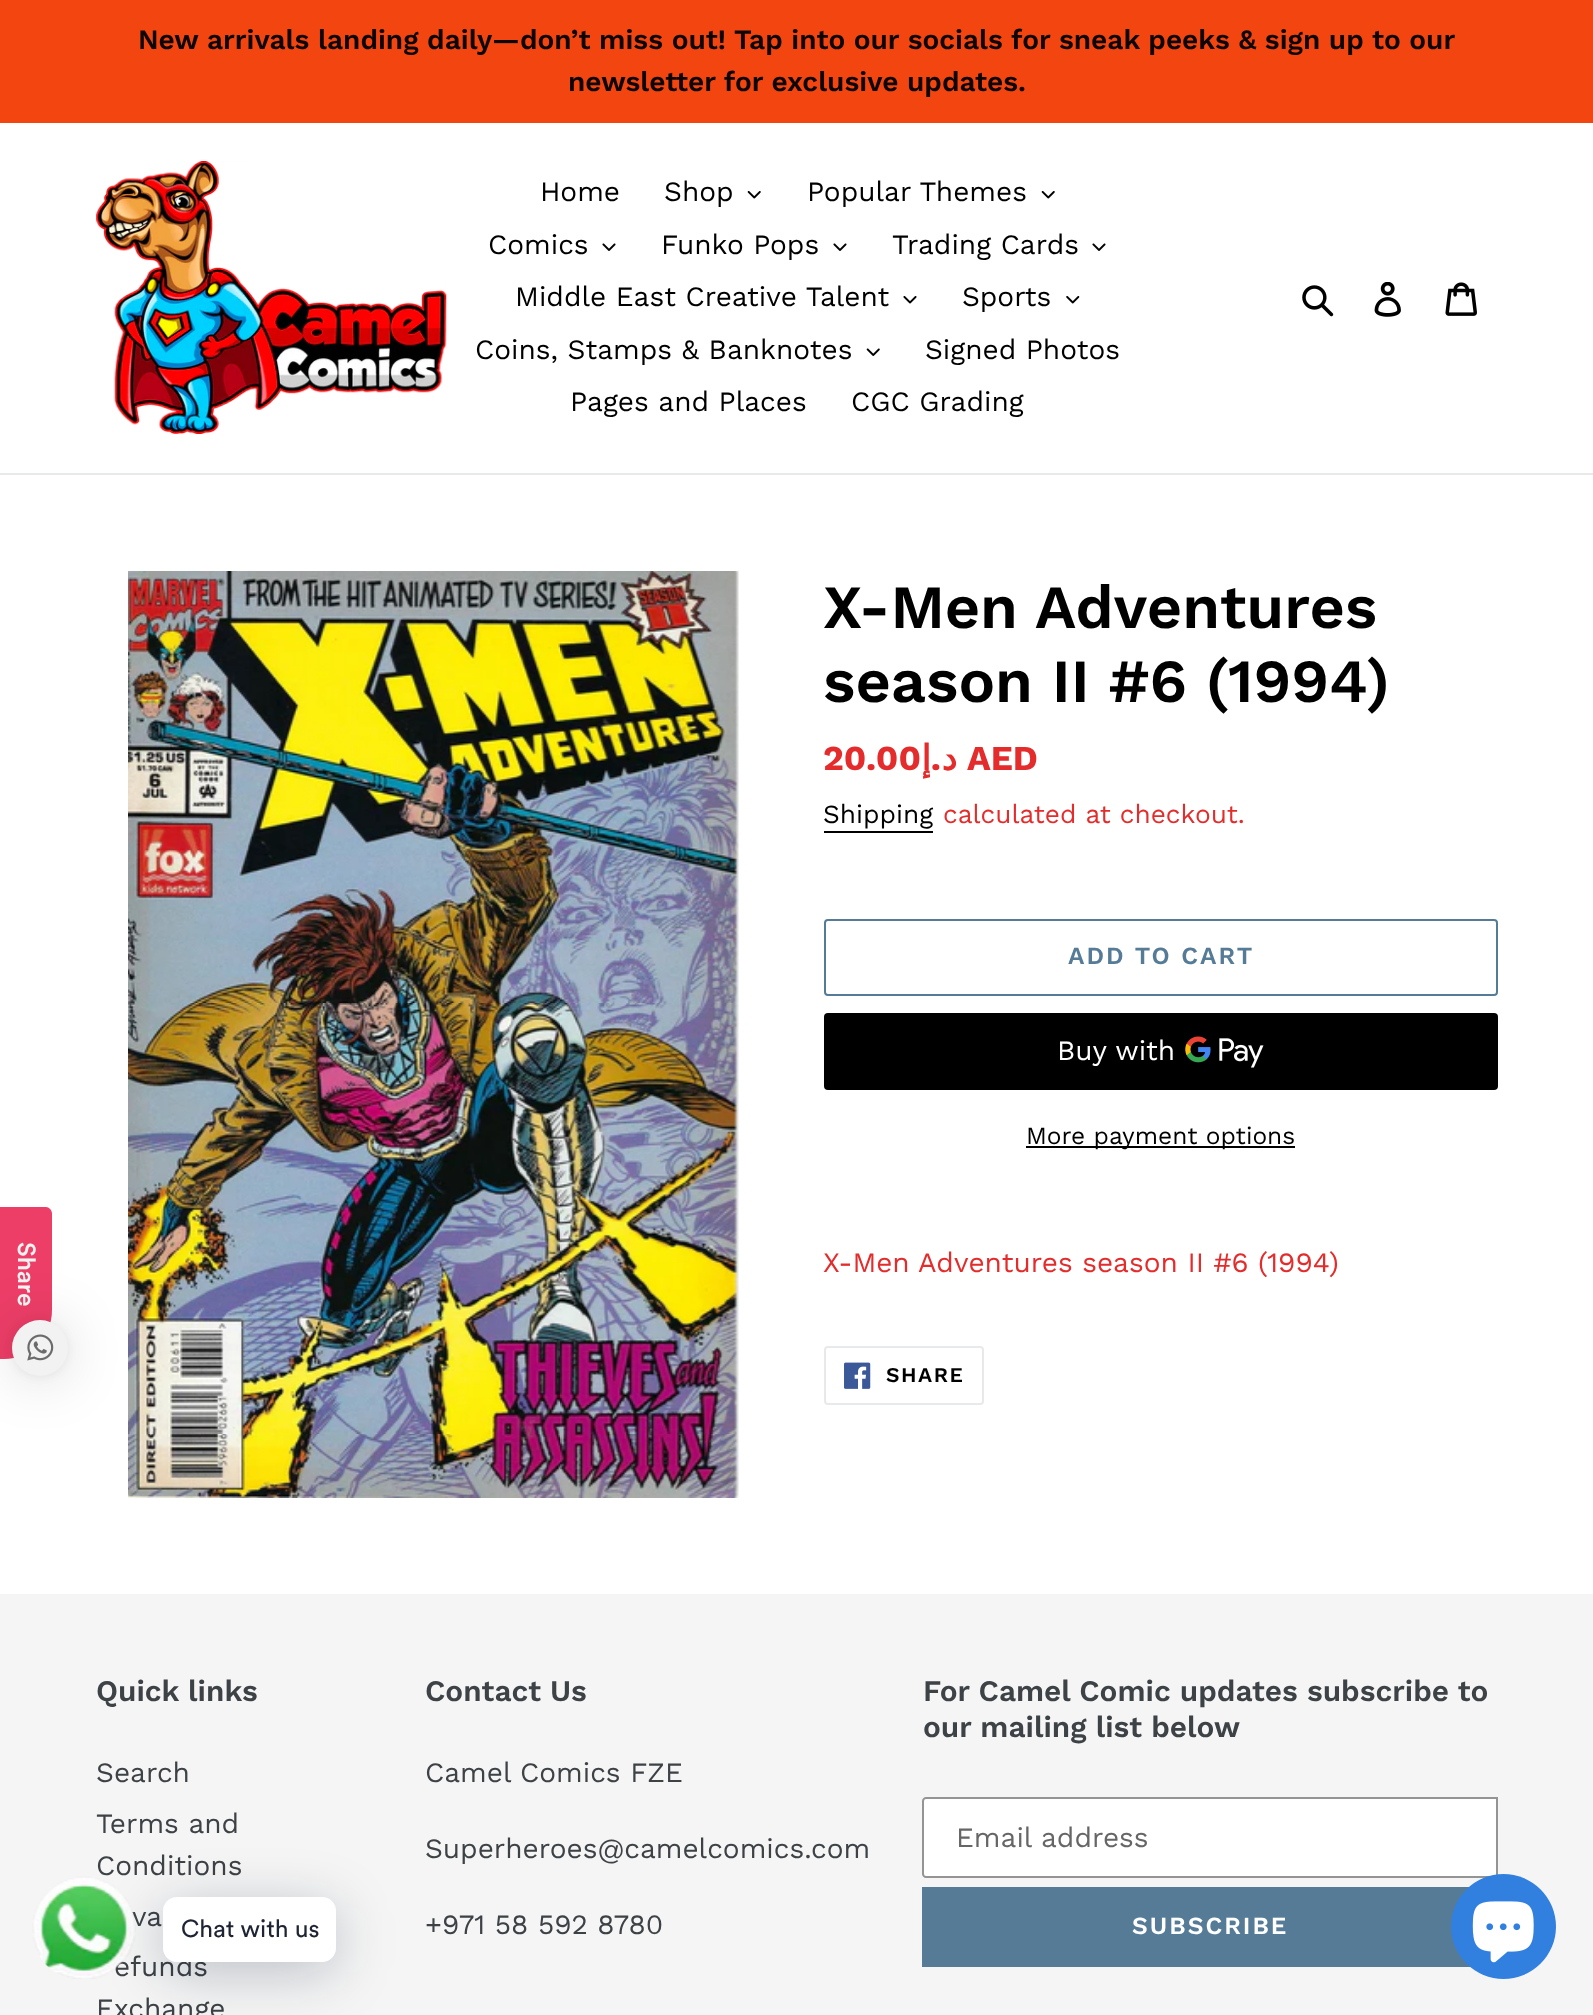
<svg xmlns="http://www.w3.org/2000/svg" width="1593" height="2015">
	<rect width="100%" height="100%" fill="#FFFFFF" />
	<rect x="0" y="0" width="1593" height="123" fill="#F34510" />
	<g font-family="Work Sans" font-size="28" font-weight="600" fill="#0D0606">
		<text x="138" y="49">New arrivals landing daily—don’t miss out! Tap into our socials for sneak peeks &amp; sign up to our</text>
		<text x="568" y="91">newsletter for exclusive updates.</text>
	</g>
	<rect x="0" y="473" width="1593" height="2" fill="#E8E9EB" />
	<image x="96" y="161" width="351" height="273" href="assets/img1.png" />
	<g font-family="Work Sans" font-size="28" fill="#000000">
		<text x="540" y="201">Home</text>
		<text x="664" y="201">Shop</text>
	</g>
	<image x="747" y="191" width="14" height="8" href="assets/img2.png" />
	<text x="807" y="201" font-family="Work Sans" font-size="28" fill="#000000">Popular Themes</text>
	<image x="1041" y="191" width="14" height="8" href="assets/img2.png" />
	<text x="488" y="254" font-family="Work Sans" font-size="28" fill="#000000">Comics</text>
	<image x="602" y="243" width="14" height="8" href="assets/img3.png" />
	<text x="661" y="254" font-family="Work Sans" font-size="28" fill="#000000">Funko Pops</text>
	<image x="833" y="243" width="14" height="8" href="assets/img3.png" />
	<text x="892" y="254" font-family="Work Sans" font-size="28" fill="#000000">Trading Cards</text>
	<image x="1092" y="243" width="14" height="8" href="assets/img3.png" />
	<text x="515" y="306" font-family="Work Sans" font-size="28" fill="#000000">Middle East Creative Talent</text>
	<image x="903" y="296" width="14" height="8" href="assets/img4.png" />
	<text x="962" y="306" font-family="Work Sans" font-size="28" fill="#000000">Sports</text>
	<image x="1066" y="296" width="14" height="8" href="assets/img5.png" />
	<text x="475" y="359" font-family="Work Sans" font-size="28" fill="#000000">Coins, Stamps &amp; Banknotes</text>
	<image x="866" y="348" width="14" height="8" href="assets/img6.png" />
	<g font-family="Work Sans" font-size="28" fill="#000000">
		<text x="925" y="359">Signed Photos</text>
		<text x="570" y="411">Pages and Places</text>
		<text x="851" y="411">CGC Grading</text>
	</g>
	<image x="1302" y="285" width="32" height="32" href="assets/img7.png" />
	<image x="1374" y="282" width="27" height="35" href="assets/img8.png" />
	<image x="1445" y="282" width="32" height="34" href="assets/img9.png" />
	<path d="M0 1359V1207H46C49 1207 52 1210 52 1214V1310C52 1337 31 1359 4 1359Z" fill="#ED3E68" />
	<image x="128" y="571" width="611" height="927" href="assets/img11.png" />
	<rect x="12" y="1323" width="56" height="56" rx="28" fill="#000000" fill-opacity="0.16" filter="blur(28px)" />
	<rect x="12" y="1321" width="56" height="56" rx="28" fill="#000000" fill-opacity="0.06" filter="blur(5px)" />
	<circle cx="40" cy="1348" r="28" fill="#F2F2F2" />
	<image x="27" y="1334" width="27" height="27" href="assets/img10.png" />
	<text x="18" y="1242" transform="rotate(90 18 1242)" font-family="Circular" font-size="24.5" font-weight="500" fill="#F2F2F2">Share</text>
	<g font-family="Work Sans" font-size="61.25" font-weight="600" fill="#000000">
		<text x="823" y="628">X-Men Adventures</text>
		<text x="823" y="702">season II #6 (1994)</text>
	</g>
	<text x="823" y="770" font-family="Work Sans" font-size="35" font-weight="700" fill="#E32C2B">20.00</text>
	<text x="931" y="770" font-family="DejaVu Sans" font-size="35" font-weight="700" direction="rtl" fill="#E32C2B">إ</text>
	<text x="941" y="770" font-family="Work Sans" font-size="35" font-weight="700" direction="rtl" fill="#E32C2B">.</text>
	<text x="957" y="770" font-family="DejaVu Sans" font-size="35" font-weight="700" direction="rtl" fill="#E32C2B">د</text>
	<text x="967" y="770" font-family="Work Sans" font-size="35" font-weight="700" fill="#E32C2B">AED</text>
	<text x="823" y="823" font-family="Work Sans" font-size="26.25" fill="#000000">Shipping</text>
	<rect x="824" y="831" width="109" height="2" fill="#000000" />
	<text x="943" y="823" font-family="Work Sans" font-size="26.25" fill="#E32C2B">calculated at checkout.</text>
	<rect x="825" y="920" width="672" height="75" rx="3" fill="none" stroke="#557B97" stroke-width="2" />
	<text x="1068" y="964" font-family="Work Sans" font-size="24.5" font-weight="600" letter-spacing="2" fill="#557B97">ADD TO CART</text>
	<rect x="824" y="1013" width="674" height="77" rx="4" fill="#000000" />
	<text x="1057" y="1060" font-family="Work Sans" font-size="28" fill="#FFFFFF">Buy with</text>
	<image x="1185" y="1036" width="79" height="32" href="assets/img12.png" />
	<rect x="1026" y="1146" width="269" height="2" fill="#000000" />
	<text x="1026" y="1144" font-family="Work Sans" font-size="24.5" fill="#000000">More payment options</text>
	<text x="823" y="1272" font-family="Work Sans" font-size="28" fill="#E32C2B">X-Men Adventures season II #6 (1994)</text>
	<rect x="825" y="1347" width="158" height="57" rx="3" fill="none" stroke="#E8E9EB" stroke-width="2" />
	<image x="844" y="1362" width="27" height="27" href="assets/img13.png" />
	<text x="886" y="1382" font-family="Work Sans" font-size="21" font-weight="600" letter-spacing="1.5" fill="#000000">SHARE</text>
	<rect x="0" y="1594" width="1593" height="421" fill="#F5F5F5" />
	<text x="96" y="1701" font-family="Work Sans" font-size="29.75" font-weight="600" fill="#3D4246">Quick links</text>
	<g font-family="Work Sans" font-size="28" fill="#3D4246">
		<text x="96" y="1782">Search</text>
		<text x="96" y="1833">Terms and</text>
		<text x="96" y="1875">Conditions</text>
		<text x="132" y="1926">va</text>
		<text x="114" y="1976">efunds</text>
		<text x="96" y="2018">Exchange</text>
	</g>
	<text x="425" y="1701" font-family="Work Sans" font-size="29.75" font-weight="600" fill="#3D4246">Contact Us</text>
	<g font-family="Work Sans" font-size="28" fill="#3D4246">
		<text x="425" y="1782">Camel Comics FZE</text>
		<text x="425" y="1858">Superheroes@camelcomics.com</text>
		<text x="425" y="1934">+971 58 592 8780</text>
	</g>
	<g font-family="Work Sans" font-size="29.75" font-weight="600" fill="#3D4246">
		<text x="923" y="1701">For Camel Comic updates subscribe to</text>
		<text x="923" y="1737">our mailing list below</text>
	</g>
	<path d="M926 1798H1497V1877H926C924.5 1877 923 1875.5 923 1874V1801C923 1799.5 924.5 1798 926 1798Z" fill="#FFFFFF" stroke="#949494" stroke-width="2" />
	<text x="956" y="1847" font-family="Work Sans" font-size="28" fill="#666666">Email address</text>
	<rect x="922" y="1887" width="549" height="80" fill="#557B97" />
	<text x="1132" y="1934" font-family="Work Sans" font-size="24.5" font-weight="600" letter-spacing="2" fill="#FFFFFF">SUBSCRIBE</text>
	<image x="32" y="1876" width="104" height="103" href="assets/img14.png" />
	<rect x="163" y="1908" width="173" height="64" rx="14" fill="#00122E" fill-opacity="0.24" filter="blur(28px)" />
	<rect x="163" y="1897" width="173" height="65" rx="14" fill="#FFFFFF" />
	<text x="181" y="1937" font-family="Circular" font-size="24.5" fill="#1E2433">Chat with us</text>
	<circle cx="1503.5" cy="1926.5" r="52.5" fill="#3180E0" />
	<image x="1472" y="1901" width="62" height="62" href="assets/img15.png" />
</svg>
